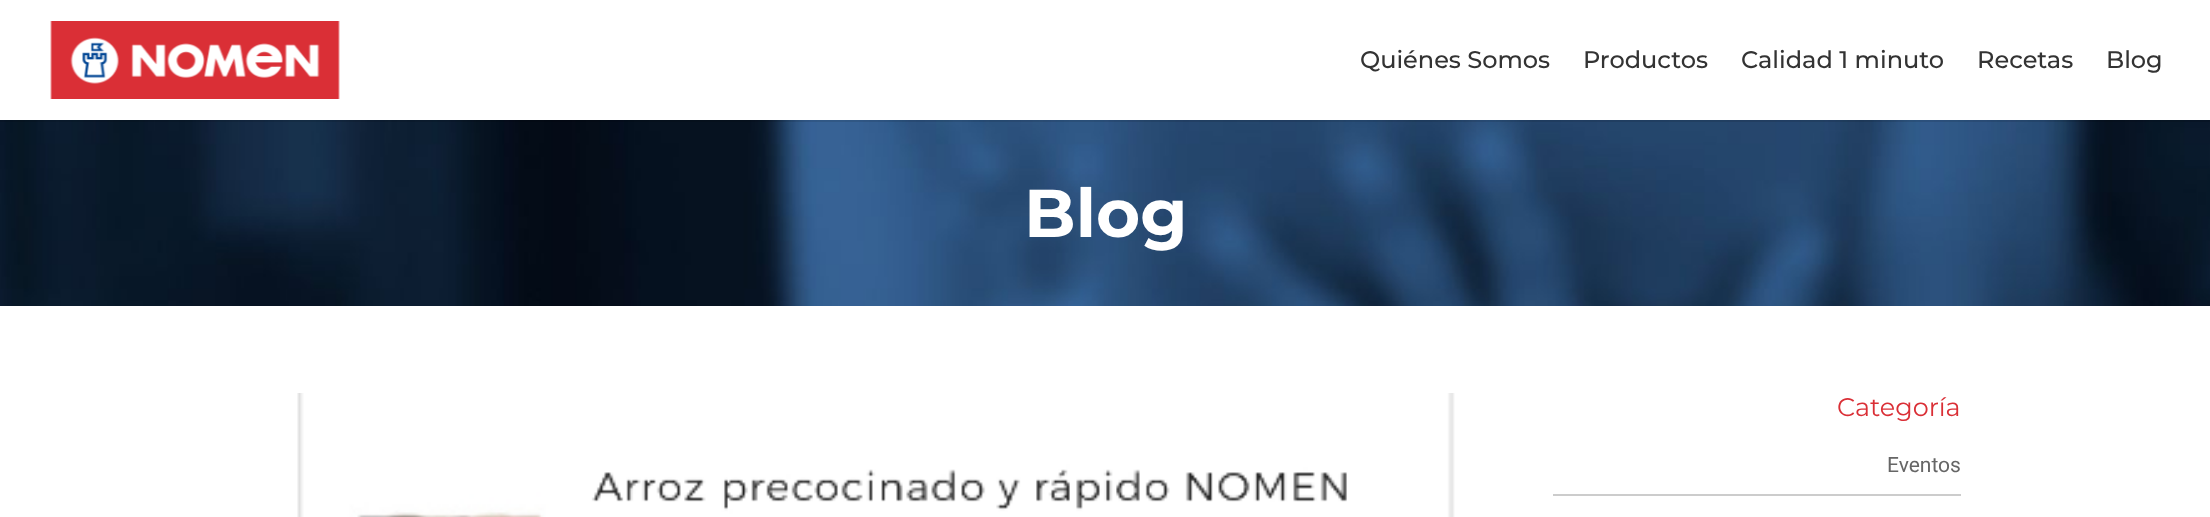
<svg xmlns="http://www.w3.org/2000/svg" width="2210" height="517">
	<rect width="100%" height="100%" fill="#FFFFFF" />
	<image x="0" y="120" width="2210" height="186" href="assets/img2.png" />
	<rect x="0" y="120" width="2210" height="2" fill="#000000" fill-opacity="0.1" />
	<image x="50" y="21" width="290" height="78" href="assets/img1.png" />
	<g font-family="Montserrat" font-size="24" font-weight="500" fill="#333333">
		<text x="1360" y="68">Quiénes Somos</text>
		<text x="1583" y="68">Productos</text>
		<text x="1741" y="68">Calidad 1 minuto</text>
		<text x="1977" y="68">Recetas</text>
		<text x="2106" y="68">Blog</text>
	</g>
	<text x="1024" y="237" font-family="Montserrat" font-size="67.5" font-weight="700" fill="#FFFFFF">Blog</text>
	<image x="297" y="393" width="1158" height="124" href="assets/img3.png" />
	<text x="1837" y="416" font-family="Montserrat" font-size="25.5" fill="#DA2F36">Categoría</text>
	<rect x="1553" y="494" width="408" height="2" fill="#CCCCCC" />
	<text x="1887" y="472" font-family="Roboto" font-size="21" fill="#666666">Eventos</text>
</svg>
